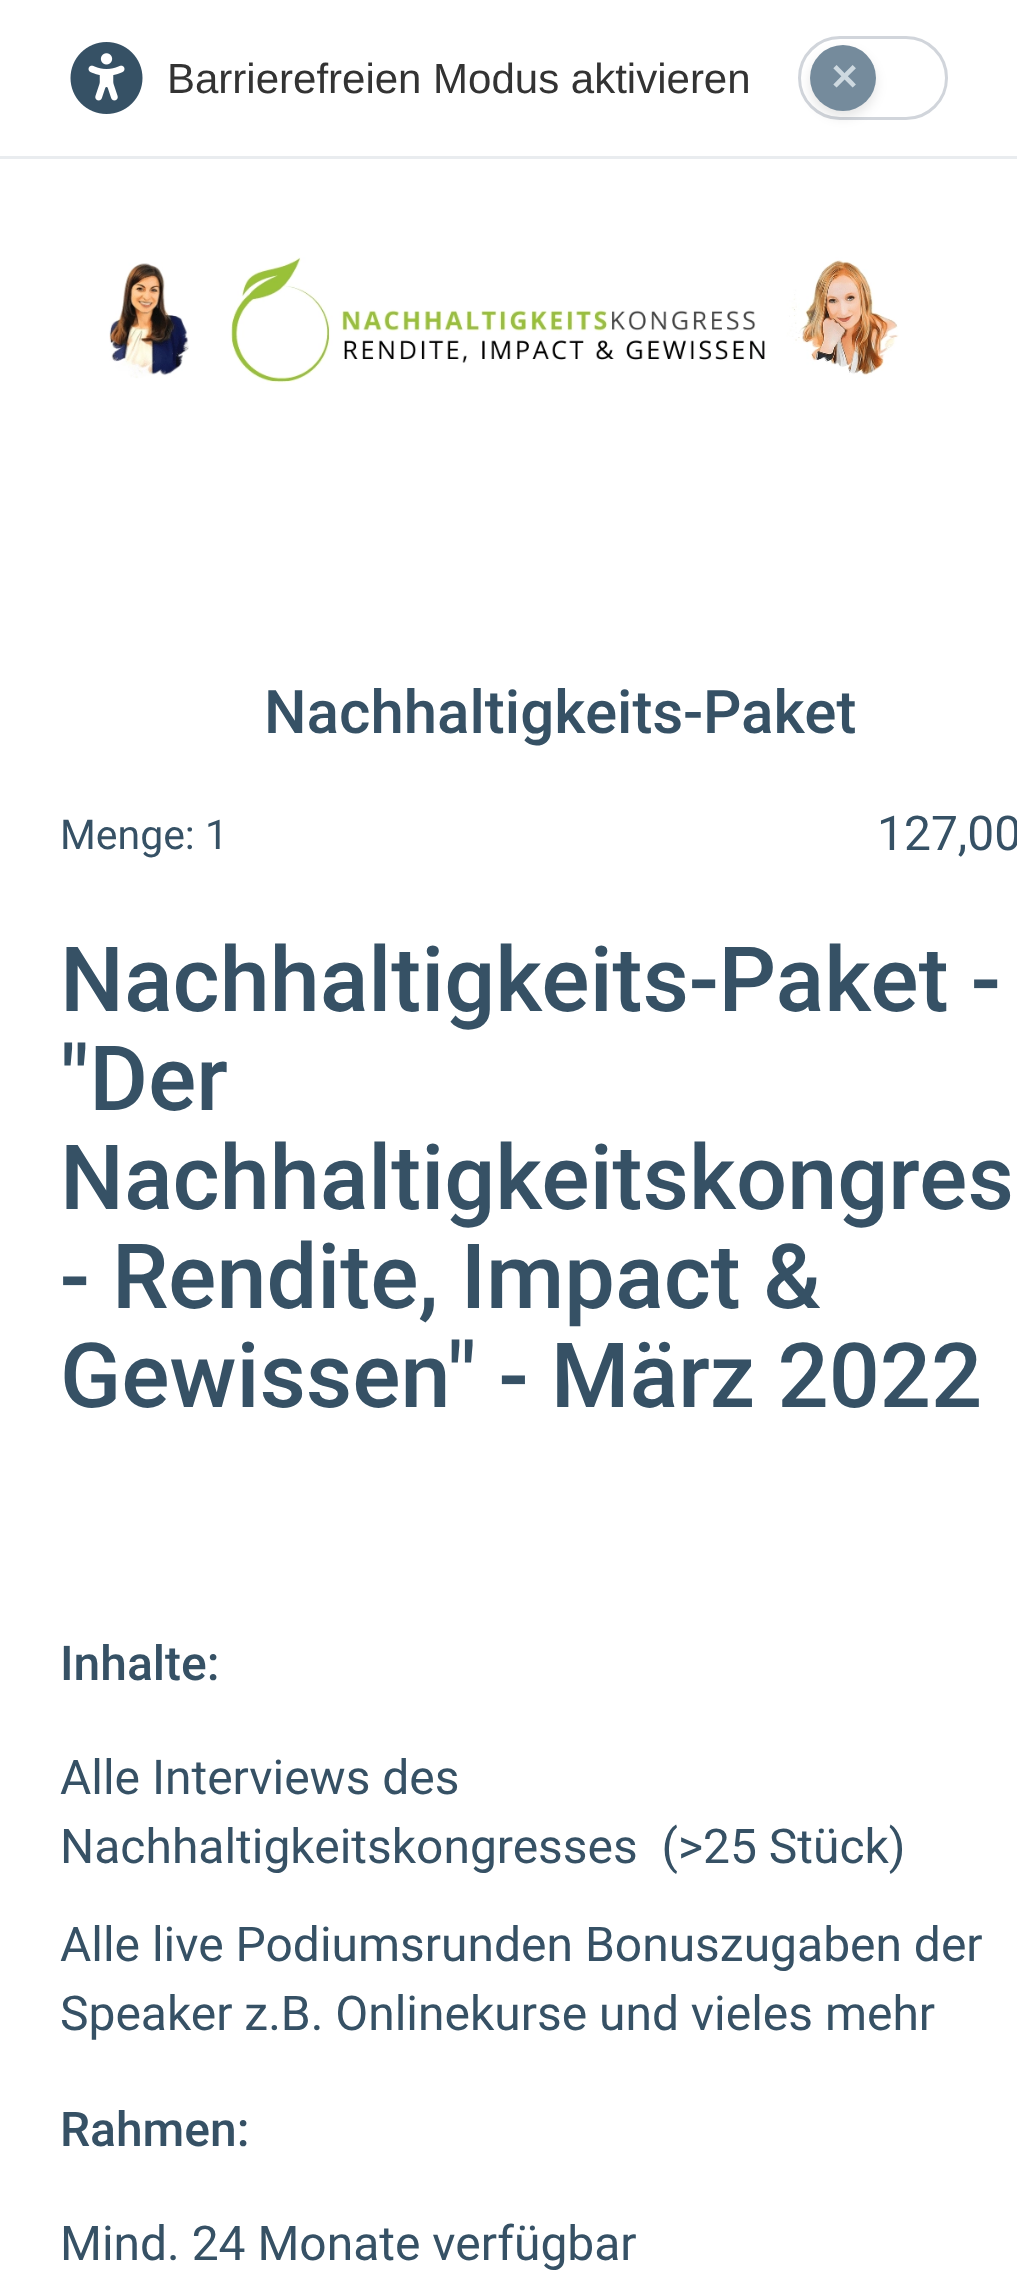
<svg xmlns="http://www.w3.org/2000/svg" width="1017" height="2276">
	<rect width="100%" height="100%" fill="#FFFFFF" />
	<rect x="0" y="156" width="1017" height="3" fill="#E9ECEF" />
	<image x="70" y="42" width="73" height="72" href="assets/img1.png" />
	<text x="167" y="93" font-family="Liberation Sans" font-size="42" fill="#333333">Barrierefreien Modus aktivieren</text>
	<rect x="799.5" y="37.5" width="147" height="81" rx="40.5" fill="none" stroke="#D1D5DB" stroke-width="3" />
	<rect x="810" y="51" width="66" height="66" rx="33" fill="#000000" fill-opacity="0.1" filter="blur(6px)" />
	<circle cx="843" cy="78" r="33" fill="#758B9C" />
	<text x="829" y="90" font-family="DejaVu Sans" font-size="36" font-weight="700" fill="#CED9E0">✕</text>
	<image x="109" y="257" width="790" height="127" href="assets/img2.png" />
	<text x="264" y="733" font-family="Roboto" font-size="60" font-weight="500" fill="#365165">Nachhaltigkeits-Paket</text>
	<text x="60" y="849" font-family="Roboto" font-size="41" fill="#365165">Menge: 1</text>
	<text x="877" y="850" font-family="Roboto" font-size="48" fill="#365165">127,00</text>
	<g font-family="Roboto" font-size="90" font-weight="500" fill="#365165">
		<text x="60" y="1011">Nachhaltigkeits-Paket -</text>
		<text x="60" y="1110">"Der</text>
		<text x="60" y="1209">Nachhaltigkeitskongres</text>
		<text x="60" y="1308">- Rendite, Impact &amp;</text>
		<text x="60" y="1407">Gewissen" - März 2022</text>
	</g>
	<text x="60" y="1680" font-family="Roboto" font-size="48" font-weight="500" fill="#365165">Inhalte:</text>
	<g font-family="Roboto" font-size="48" fill="#365165">
		<text x="60" y="1794">Alle Interviews des</text>
		<text x="60" y="1863" xml:space="preserve">Nachhaltigkeitskongresses  (&gt;25 Stück)</text>
		<text x="60" y="1961">Alle live Podiumsrunden Bonuszugaben der</text>
		<text x="60" y="2030">Speaker z.B. Onlinekurse und vieles mehr</text>
	</g>
	<text x="60" y="2146" font-family="Roboto" font-size="48" font-weight="500" fill="#365165">Rahmen:</text>
	<text x="60" y="2260" font-family="Roboto" font-size="48" fill="#365165">Mind. 24 Monate verfügbar</text>
</svg>
